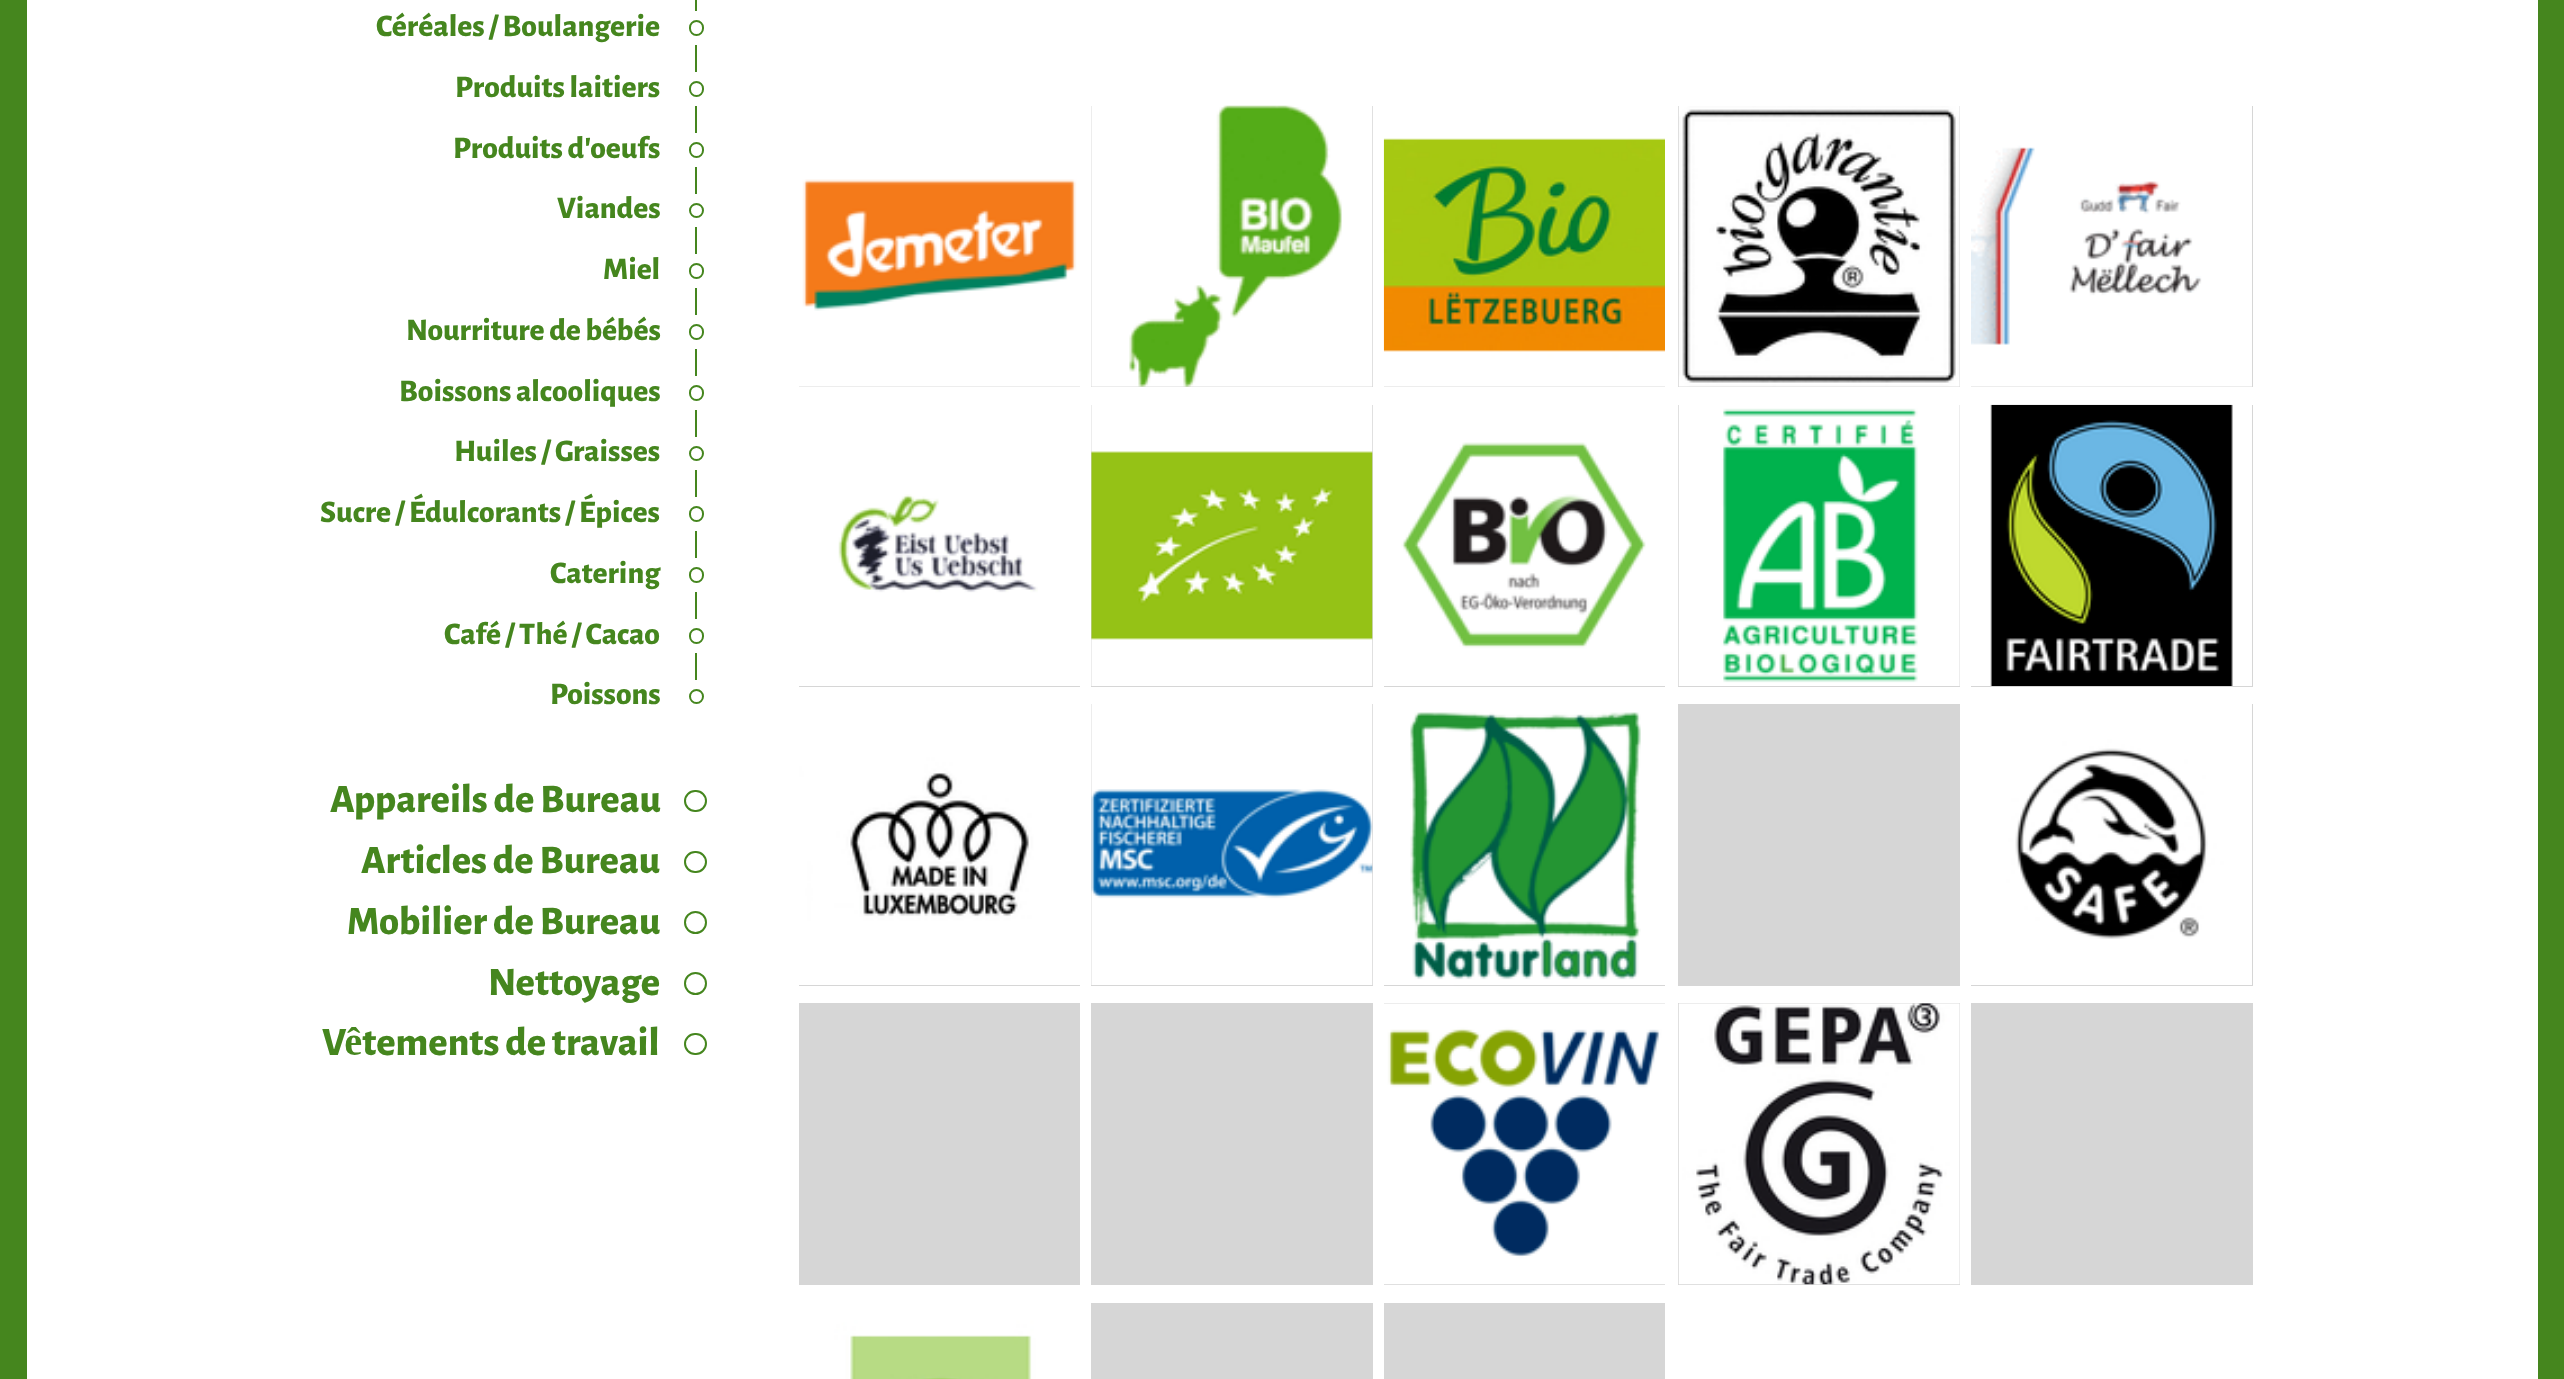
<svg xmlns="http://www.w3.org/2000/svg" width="2564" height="1379">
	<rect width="100%" height="100%" fill="#FFFFFF" />
	<rect x="13.5" y="-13.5" width="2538" height="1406" fill="none" stroke="#45861E" stroke-width="27" />
	<rect x="695" y="0" width="2" height="11" fill="#45861E" />
	<text x="376" y="36" font-family="Alegreya Sans" font-size="31.5" font-weight="800" fill="#45861E">Céréales / Boulangerie</text>
	<rect x="690" y="21" width="13" height="14" rx="6.5" fill="none" stroke="#45861E" stroke-width="2" />
	<rect x="695" y="45" width="2" height="27" fill="#45861E" />
	<text x="455" y="97" font-family="Alegreya Sans" font-size="31.5" font-weight="800" fill="#45861E">Produits laitiers</text>
	<rect x="690" y="82" width="13" height="14" rx="6.5" fill="none" stroke="#45861E" stroke-width="2" />
	<rect x="695" y="106" width="2" height="27" fill="#45861E" />
	<text x="453" y="158" font-family="Alegreya Sans" font-size="31.5" font-weight="800" fill="#45861E">Produits d'oeufs</text>
	<rect x="690" y="143" width="13" height="14" rx="6.5" fill="none" stroke="#45861E" stroke-width="2" />
	<rect x="695" y="167" width="2" height="27" fill="#45861E" />
	<text x="557" y="218" font-family="Alegreya Sans" font-size="31.5" font-weight="800" fill="#45861E">Viandes</text>
	<circle cx="696.5" cy="210.5" r="6.5" fill="none" stroke="#45861E" stroke-width="2" />
	<rect x="695" y="227" width="2" height="27" fill="#45861E" />
	<text x="603" y="279" font-family="Alegreya Sans" font-size="31.5" font-weight="800" fill="#45861E">Miel</text>
	<rect x="690" y="264" width="13" height="14" rx="6.5" fill="none" stroke="#45861E" stroke-width="2" />
	<rect x="695" y="288" width="2" height="27" fill="#45861E" />
	<text x="406" y="340" font-family="Alegreya Sans" font-size="31.5" font-weight="800" fill="#45861E">Nourriture de bébés</text>
	<rect x="690" y="325" width="13" height="14" rx="6.5" fill="none" stroke="#45861E" stroke-width="2" />
	<rect x="695" y="349" width="2" height="27" fill="#45861E" />
	<text x="399" y="401" font-family="Alegreya Sans" font-size="31.5" font-weight="800" fill="#45861E">Boissons alcooliques</text>
	<rect x="690" y="386" width="13" height="14" rx="6.5" fill="none" stroke="#45861E" stroke-width="2" />
	<rect x="695" y="410" width="2" height="27" fill="#45861E" />
	<text x="454" y="461" font-family="Alegreya Sans" font-size="31.5" font-weight="800" fill="#45861E">Huiles / Graisses</text>
	<circle cx="696.5" cy="453.5" r="6.5" fill="none" stroke="#45861E" stroke-width="2" />
	<rect x="695" y="470" width="2" height="27" fill="#45861E" />
	<text x="320" y="522" font-family="Alegreya Sans" font-size="31.5" font-weight="800" fill="#45861E">Sucre / Édulcorants / Épices</text>
	<rect x="690" y="507" width="13" height="14" rx="6.5" fill="none" stroke="#45861E" stroke-width="2" />
	<rect x="695" y="531" width="2" height="27" fill="#45861E" />
	<text x="550" y="583" font-family="Alegreya Sans" font-size="31.5" font-weight="800" fill="#45861E">Catering</text>
	<rect x="690" y="568" width="13" height="14" rx="6.5" fill="none" stroke="#45861E" stroke-width="2" />
	<rect x="695" y="592" width="2" height="27" fill="#45861E" />
	<text x="444" y="644" font-family="Alegreya Sans" font-size="31.5" font-weight="800" fill="#45861E">Café / Thé / Cacao</text>
	<rect x="690" y="629" width="13" height="14" rx="6.5" fill="none" stroke="#45861E" stroke-width="2" />
	<rect x="695" y="653" width="2" height="27" fill="#45861E" />
	<text x="550" y="704" font-family="Alegreya Sans" font-size="31.5" font-weight="800" fill="#45861E">Poissons</text>
	<circle cx="696.5" cy="696.5" r="6.5" fill="none" stroke="#45861E" stroke-width="2" />
	<text x="330" y="812" font-family="Alegreya Sans" font-size="40.5" font-weight="800" fill="#45861E">Appareils de Bureau</text>
	<rect x="685" y="791" width="21" height="20" rx="10" fill="none" stroke="#45861E" stroke-width="2" />
	<text x="361" y="873" font-family="Alegreya Sans" font-size="40.5" font-weight="800" fill="#45861E">Articles de Bureau</text>
	<rect x="685" y="852" width="21" height="20" rx="10" fill="none" stroke="#45861E" stroke-width="2" />
	<text x="347" y="934" font-family="Alegreya Sans" font-size="40.5" font-weight="800" fill="#45861E">Mobilier de Bureau</text>
	<circle cx="695.5" cy="922.5" r="10.5" fill="none" stroke="#45861E" stroke-width="2" />
	<text x="488" y="995" font-family="Alegreya Sans" font-size="40.5" font-weight="800" fill="#45861E">Nettoyage</text>
	<circle cx="695.5" cy="983.5" r="10.5" fill="none" stroke="#45861E" stroke-width="2" />
	<text x="322" y="1055" font-family="Alegreya Sans" font-size="40.5" font-weight="800" fill="#45861E">Vêtements de travail</text>
	<rect x="685" y="1034" width="21" height="20" rx="10" fill="none" stroke="#45861E" stroke-width="2" />
	<rect x="799" y="386" width="281" height="1" fill="#D6D6D6" />
	<image x="799" y="106" width="281" height="281" href="assets/img1.png" />
	<rect x="1091" y="106" width="282" height="281" fill="#D6D6D6" />
	<image x="1091" y="105" width="282" height="282" href="assets/img2.png" />
	<rect x="1384" y="386" width="281" height="1" fill="#D6D6D6" />
	<image x="1383" y="106" width="282" height="281" href="assets/img3.png" />
	<rect x="1678" y="106" width="282" height="281" fill="#D6D6D6" />
	<image x="1678" y="106" width="282" height="281" href="assets/img4.png" />
	<rect x="1971" y="106" width="282" height="281" fill="#D6D6D6" />
	<image x="1971" y="106" width="281" height="281" href="assets/img5.png" />
	<rect x="799" y="686" width="281" height="1" fill="#D6D6D6" />
	<image x="799" y="405" width="281" height="281" href="assets/img6.png" />
	<rect x="1091" y="405" width="282" height="282" fill="#D6D6D6" />
	<image x="1091" y="405" width="282" height="281" href="assets/img7.png" />
	<rect x="1384" y="686" width="281" height="1" fill="#D6D6D6" />
	<image x="1384" y="405" width="281" height="281" href="assets/img8.png" />
	<rect x="1678" y="405" width="282" height="282" fill="#D6D6D6" />
	<image x="1678" y="405" width="282" height="281" href="assets/img9.png" />
	<rect x="1971" y="405" width="282" height="282" fill="#D6D6D6" />
	<image x="1971" y="404" width="281" height="282" href="assets/img10.png" />
	<rect x="799" y="985" width="281" height="1" fill="#D6D6D6" />
	<image x="799" y="704" width="281" height="281" href="assets/img11.png" />
	<rect x="1091" y="704" width="282" height="282" fill="#D6D6D6" />
	<image x="1091" y="704" width="282" height="281" href="assets/img12.png" />
	<rect x="1384" y="985" width="281" height="1" fill="#D6D6D6" />
	<image x="1384" y="704" width="281" height="281" href="assets/img13.png" />
	<rect x="1678" y="704" width="282" height="282" fill="#D6D6D6" />
	<rect x="1971" y="704" width="282" height="282" fill="#D6D6D6" />
	<image x="1971" y="704" width="281" height="281" href="assets/img14.png" />
	<rect x="799" y="1003" width="281" height="282" fill="#D6D6D6" />
	<rect x="1091" y="1003" width="282" height="282" fill="#D6D6D6" />
	<rect x="1384" y="1003" width="281" height="282" fill="#D6D6D6" />
	<image x="1384" y="1003" width="281" height="282" href="assets/img15.png" />
	<rect x="1678" y="1003" width="282" height="282" fill="#D6D6D6" />
	<image x="1678" y="1003" width="282" height="282" href="assets/img16.png" />
	<rect x="1971" y="1003" width="282" height="282" fill="#D6D6D6" />
	<image x="799" y="1303" width="281" height="76" href="assets/img17.png" />
	<rect x="1091" y="1303" width="282" height="76" fill="#D6D6D6" />
	<rect x="1384" y="1303" width="281" height="76" fill="#D6D6D6" />
</svg>
